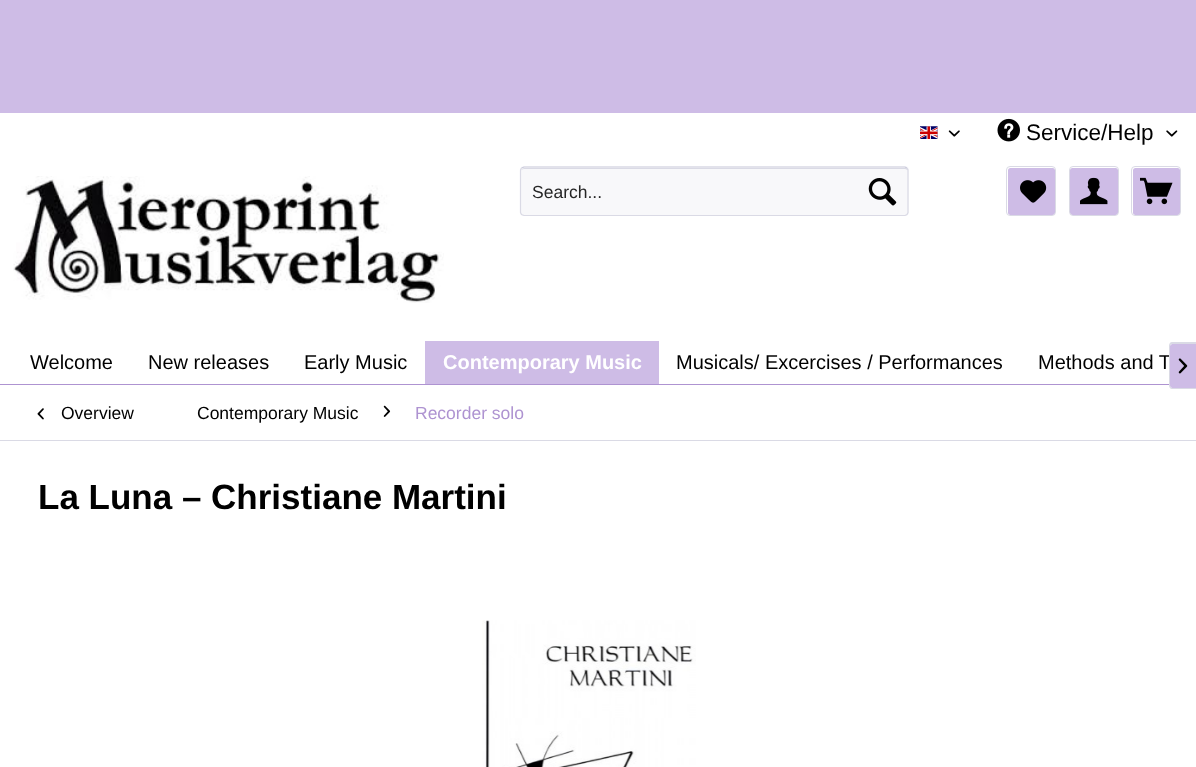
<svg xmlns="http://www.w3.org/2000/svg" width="1196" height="767">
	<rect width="100%" height="100%" fill="#FFFFFF" />
	<rect x="0" y="0" width="1196" height="113" fill="#CEBCE6" />
	<image x="920" y="126" width="18" height="13" href="assets/img1.png" />
	<image x="948" y="130" width="12" height="7" href="assets/img2.png" />
	<image x="997" y="118" width="23" height="24" href="assets/img3.png" />
	<text x="1026" y="140" font-family="Liberation Sans" font-size="22.5" fill="#000000">Service/Help</text>
	<image x="1166" y="130" width="12" height="7" href="assets/img4.png" />
	<image x="13" y="176" width="431" height="127" href="assets/img5.png" />
	<rect x="520" y="166" width="389" height="50" rx="4" fill="#F8F8FA" />
	<path d="M524 169H905C906 169 908 170 908 171C908 169 907 168 906 168H524L522 169L521 171C521 170 522 169 524 169Z" fill="#DADAE5" />
	<path d="M521.5 168L524 167H905L907 168" fill="none" stroke="#CBCBDB" stroke-width="1.2" />
	<path d="M907 168L908 170V212.5L907 214.5L905 215.5H524L521.5 214.5L520.5 212.5V170L521.5 168" fill="none" stroke="#DADAE5" stroke-width="1.2" />
	<text x="532" y="198" font-family="Liberation Sans" font-size="17.5" fill="#262626">Search...</text>
	<image x="868" y="178" width="29" height="28" href="assets/img6.png" />
	<rect x="1008" y="168" width="47" height="47" rx="2.5" fill="#CEBCE6" />
	<rect x="1006.5" y="166.5" width="49" height="49" rx="3.5" fill="none" stroke="#DADAE5" />
	<image x="1020" y="180" width="27" height="23" href="assets/img7.png" />
	<rect x="1070" y="168" width="48" height="47" rx="2.5" fill="#CEBCE6" />
	<rect x="1069.5" y="166.5" width="49" height="49" rx="3.5" fill="none" stroke="#DADAE5" />
	<image x="1080" y="177" width="28" height="28" href="assets/img8.png" />
	<rect x="1133" y="168" width="47" height="47" rx="2.5" fill="#CEBCE6" />
	<rect x="1131.5" y="166.5" width="49" height="49" rx="3.5" fill="none" stroke="#DADAE5" />
	<image x="1140" y="177" width="33" height="28" href="assets/img9.png" />
	<rect x="0" y="384" width="1169" height="1" fill="#AE93D1" />
	<g font-family="Liberation Sans" font-size="20" fill="#000000">
		<text x="30" y="369">Welcome</text>
		<text x="148" y="369">New releases</text>
		<text x="304" y="369">Early Music</text>
	</g>
	<rect x="425" y="341" width="234" height="43" fill="#CEBCE6" />
	<text x="443" y="369" font-family="Liberation Sans" font-size="20" font-weight="700" fill="#FFFFFF">Contemporary Music</text>
	<g font-family="Liberation Sans" font-size="20" fill="#000000">
		<text x="676" y="369">Musicals/ Excercises / Performances</text>
		<text x="1038" y="369">Methods and T</text>
	</g>
	<path d="M1172.5 344H1196V388H1172.5C1171 388 1170 387 1170 385.5V346.5C1170 345 1171 344 1172.5 344Z" fill="#CEBCE6" />
	<path d="M1172 342H1196V389H1172C1170 389 1169 387 1169 385V346C1169 344 1170 342 1172 342ZM1172 344H1196V388H1172C1171 388 1170 386 1170 385V346C1170 345 1171 344 1172 344Z" fill="#DADAE5" fill-rule="evenodd" />
	<image x="1178" y="358" width="10" height="16" href="assets/img10.png" />
	<rect x="0" y="440" width="1196" height="1" fill="#DADAE5" />
	<image x="37" y="408" width="7" height="12" href="assets/img11.png" />
	<g font-family="Liberation Sans" font-size="17.5" fill="#000000">
		<text x="61" y="419">Overview</text>
		<text x="197" y="419">Contemporary Music</text>
	</g>
	<image x="383" y="405" width="8" height="12" href="assets/img12.png" />
	<text x="415" y="419" font-family="Liberation Sans" font-size="17.5" fill="#AE93D1">Recorder solo</text>
	<text x="38" y="509" font-family="Liberation Sans" font-size="35" font-weight="700" fill="#000000">La Luna – Christiane Martini</text>
	<image x="482" y="620" width="214" height="147" href="assets/img13.png" />
</svg>
